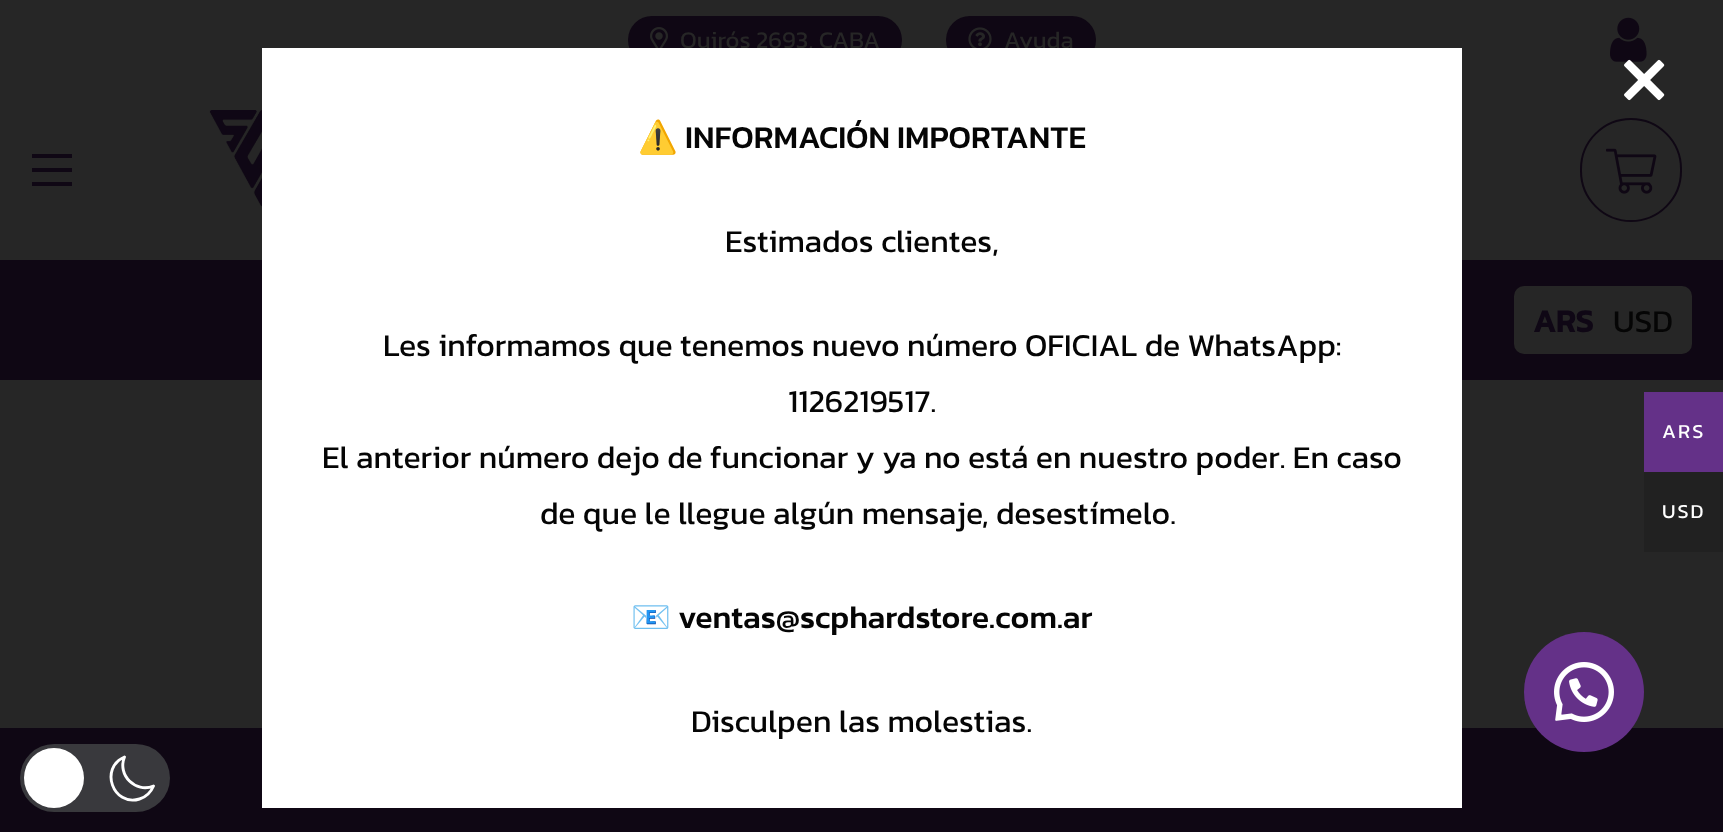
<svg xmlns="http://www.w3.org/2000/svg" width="1723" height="832">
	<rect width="100%" height="100%" fill="#262626" />
	<rect x="628" y="16" width="274" height="48" rx="24" fill="#0F0714" />
	<image x="650" y="27" width="18" height="21" href="assets/img1.png" />
	<text x="680" y="48" font-family="Kanit" font-size="24" fill="#262626">Quirós 2693, CABA</text>
	<rect x="946" y="16" width="150" height="48" rx="24" fill="#0F0714" />
	<image x="968" y="27" width="24" height="21" href="assets/img2.png" />
	<text x="1004" y="48" font-family="Kanit" font-size="24" fill="#262626">Ayuda</text>
	<image x="1610" y="17" width="37" height="45" href="assets/img3.png" />
	<rect x="32" y="168" width="40" height="4" fill="#0F0714" />
	<rect x="32" y="154" width="40" height="4" fill="#0F0714" />
	<rect x="32" y="182" width="40" height="4" fill="#0F0714" />
	<image x="209" y="110" width="53" height="97" href="assets/img4.png" />
	<rect x="1581" y="119" width="100" height="102" rx="50" fill="none" stroke="#0F0714" stroke-width="2" />
	<image x="1606" y="148" width="51" height="46" href="assets/img5.png" />
	<rect x="0" y="260" width="1723" height="120" fill="#0F0714" />
	<rect x="1514" y="286" width="178" height="68" rx="10" fill="#262626" />
	<text x="1533" y="332" font-family="Kanit" font-size="32" font-weight="700" fill="#0F0715">ARS</text>
	<text x="1613" y="332" font-family="Kanit" font-size="32" fill="#050505">USD</text>
	<image x="1624" y="59" width="41" height="42" href="assets/img6.png" />
	<rect x="0" y="728" width="1723" height="104" fill="#0F0714" />
	<rect x="262" y="48" width="1200" height="760" fill="#FFFFFF" />
	<text x="638" y="148" font-family="Noto Color Emoji" font-size="32" fill="#050505">⚠️</text>
	<text x="685" y="148" font-family="Kanit" font-size="32" font-weight="500" fill="#050505">INFORMACIÓN IMPORTANTE</text>
	<g font-family="Kanit" font-size="32" fill="#050505">
		<text x="725" y="252">Estimados clientes,</text>
		<text x="383" y="356">Les informamos que tenemos nuevo número OFICIAL de WhatsApp:</text>
		<text x="788" y="412">1126219517.</text>
		<text x="322" y="468">El anterior número dejo de funcionar y ya no está en nuestro poder. En caso</text>
		<text x="540" y="524">de que le llegue algún mensaje, desestímelo.</text>
	</g>
	<text x="631" y="628" font-family="Noto Color Emoji" font-size="32" fill="#050505">📧</text>
	<text x="678" y="628" font-family="Kanit" font-size="32" font-weight="500" fill="#050505">ventas@scphardstore.com.ar</text>
	<text x="691" y="732" font-family="Kanit" font-size="32" fill="#050505">Disculpen las molestias.</text>
	<rect x="1644" y="392" width="79" height="80" fill="#643188" />
	<text x="1662" y="438" font-family="Kanit" font-size="20" letter-spacing="2" fill="#FFFFFF">ARS</text>
	<rect x="1644" y="472" width="79" height="80" fill="#212121" />
	<text x="1662" y="518" font-family="Kanit" font-size="20" letter-spacing="2" fill="#FFFFFF">USD</text>
	<circle cx="1584" cy="692" r="60" fill="#643188" />
	<image x="1554" y="662" width="60" height="60" href="assets/img7.png" />
	<rect x="20" y="744" width="150" height="68" rx="34" fill="#39393D" />
	<circle cx="54" cy="778" r="30" fill="#FFFFFF" />
	<path d="M153.5 786C135.5 793.5 117 775 124.5 757C99 768 113 807 139.5 799C146 797 151 792 153.5 786Z" fill="none" stroke="#FFFFFF" stroke-width="2.9" stroke-linecap="round" stroke-linejoin="round" />
</svg>
